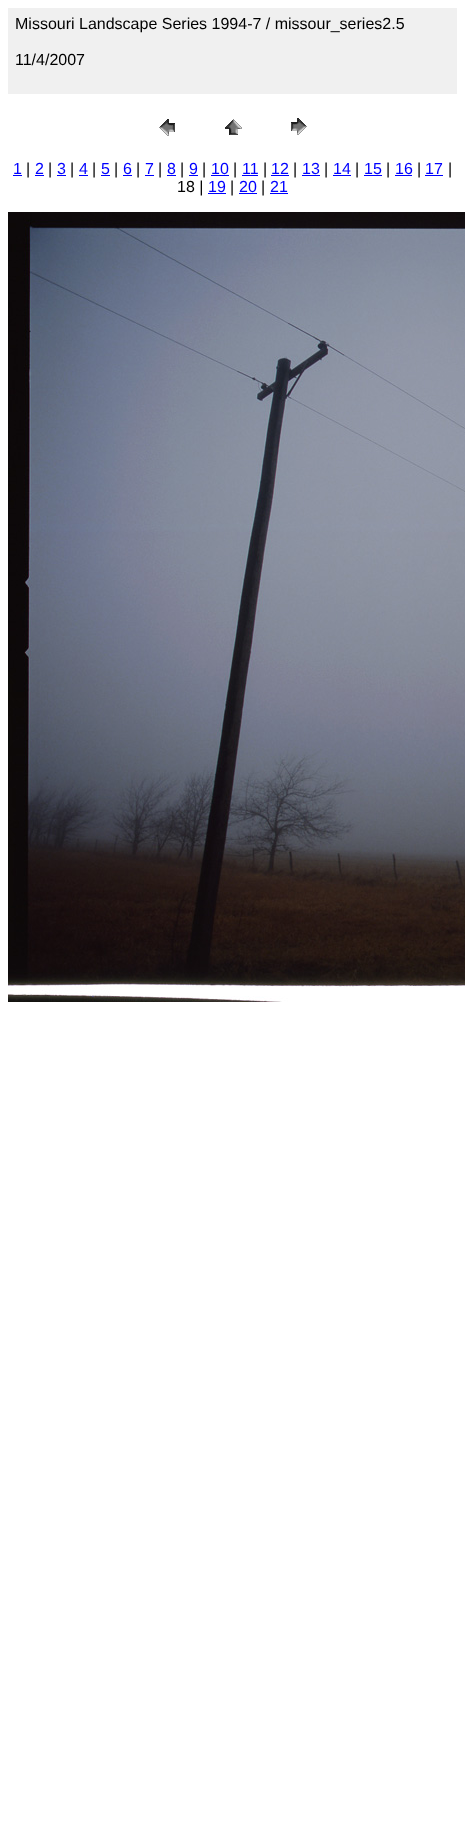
<svg xmlns="http://www.w3.org/2000/svg" width="465" height="1825">
	<rect width="100%" height="100%" fill="#FFFFFF" />
	<rect x="8" y="8" width="449" height="86" fill="#F0F0F0" />
	<g font-family="Liberation Sans" font-size="16" fill="#000000">
		<text x="15" y="29">Missouri Landscape Series 1994-7 / missour_series2.5</text>
		<text x="15" y="65">11/4/2007</text>
	</g>
	<image x="159" y="119" width="16" height="17" href="assets/img1.png" />
	<image x="225" y="119" width="17" height="16" href="assets/img2.png" />
	<image x="291" y="118" width="16" height="17" href="assets/img3.png" />
	<text x="13" y="174" font-family="Liberation Sans" font-size="16" fill="#0000FF">1</text>
	<rect x="13" y="175" width="9" height="1" fill="#0000FF" />
	<text x="26" y="174" font-family="Liberation Sans" font-size="16" fill="#000000">|</text>
	<text x="35" y="174" font-family="Liberation Sans" font-size="16" fill="#0000FF">2</text>
	<rect x="35" y="175" width="9" height="1" fill="#0000FF" />
	<text x="48" y="174" font-family="Liberation Sans" font-size="16" fill="#000000">|</text>
	<text x="57" y="174" font-family="Liberation Sans" font-size="16" fill="#0000FF">3</text>
	<rect x="57" y="175" width="9" height="1" fill="#0000FF" />
	<text x="70" y="174" font-family="Liberation Sans" font-size="16" fill="#000000">|</text>
	<text x="79" y="174" font-family="Liberation Sans" font-size="16" fill="#0000FF">4</text>
	<rect x="79" y="175" width="9" height="1" fill="#0000FF" />
	<text x="92" y="174" font-family="Liberation Sans" font-size="16" fill="#000000">|</text>
	<text x="101" y="174" font-family="Liberation Sans" font-size="16" fill="#0000FF">5</text>
	<rect x="101" y="175" width="9" height="1" fill="#0000FF" />
	<text x="114" y="174" font-family="Liberation Sans" font-size="16" fill="#000000">|</text>
	<text x="123" y="174" font-family="Liberation Sans" font-size="16" fill="#0000FF">6</text>
	<rect x="123" y="175" width="9" height="1" fill="#0000FF" />
	<text x="136" y="174" font-family="Liberation Sans" font-size="16" fill="#000000">|</text>
	<text x="145" y="174" font-family="Liberation Sans" font-size="16" fill="#0000FF">7</text>
	<rect x="145" y="175" width="9" height="1" fill="#0000FF" />
	<text x="158" y="174" font-family="Liberation Sans" font-size="16" fill="#000000">|</text>
	<text x="167" y="174" font-family="Liberation Sans" font-size="16" fill="#0000FF">8</text>
	<rect x="167" y="175" width="9" height="1" fill="#0000FF" />
	<text x="180" y="174" font-family="Liberation Sans" font-size="16" fill="#000000">|</text>
	<text x="189" y="174" font-family="Liberation Sans" font-size="16" fill="#0000FF">9</text>
	<rect x="189" y="175" width="9" height="1" fill="#0000FF" />
	<text x="202" y="174" font-family="Liberation Sans" font-size="16" fill="#000000">|</text>
	<text x="211" y="174" font-family="Liberation Sans" font-size="16" fill="#0000FF">10</text>
	<rect x="211" y="175" width="18" height="1" fill="#0000FF" />
	<text x="233" y="174" font-family="Liberation Sans" font-size="16" fill="#000000">|</text>
	<text x="242" y="174" font-family="Liberation Sans" font-size="16" fill="#0000FF">11</text>
	<rect x="242" y="175" width="16" height="1" fill="#0000FF" />
	<text x="263" y="174" font-family="Liberation Sans" font-size="16" fill="#000000">|</text>
	<text x="271" y="174" font-family="Liberation Sans" font-size="16" fill="#0000FF">12</text>
	<rect x="271" y="175" width="18" height="1" fill="#0000FF" />
	<text x="293" y="174" font-family="Liberation Sans" font-size="16" fill="#000000">|</text>
	<text x="302" y="174" font-family="Liberation Sans" font-size="16" fill="#0000FF">13</text>
	<rect x="302" y="175" width="18" height="1" fill="#0000FF" />
	<text x="324" y="174" font-family="Liberation Sans" font-size="16" fill="#000000">|</text>
	<text x="333" y="174" font-family="Liberation Sans" font-size="16" fill="#0000FF">14</text>
	<rect x="333" y="175" width="18" height="1" fill="#0000FF" />
	<text x="355" y="174" font-family="Liberation Sans" font-size="16" fill="#000000">|</text>
	<text x="364" y="174" font-family="Liberation Sans" font-size="16" fill="#0000FF">15</text>
	<rect x="364" y="175" width="18" height="1" fill="#0000FF" />
	<text x="386" y="174" font-family="Liberation Sans" font-size="16" fill="#000000">|</text>
	<text x="395" y="174" font-family="Liberation Sans" font-size="16" fill="#0000FF">16</text>
	<rect x="395" y="175" width="17" height="1" fill="#0000FF" />
	<text x="417" y="174" font-family="Liberation Sans" font-size="16" fill="#000000">|</text>
	<text x="425" y="174" font-family="Liberation Sans" font-size="16" fill="#0000FF">17</text>
	<rect x="425" y="175" width="18" height="1" fill="#0000FF" />
	<g font-family="Liberation Sans" font-size="16" fill="#000000">
		<text x="448" y="174">|</text>
		<text x="177" y="192">18 |</text>
	</g>
	<text x="208" y="192" font-family="Liberation Sans" font-size="16" fill="#0000FF">19</text>
	<rect x="208" y="193" width="18" height="1" fill="#0000FF" />
	<text x="230" y="192" font-family="Liberation Sans" font-size="16" fill="#000000">|</text>
	<text x="239" y="192" font-family="Liberation Sans" font-size="16" fill="#0000FF">20</text>
	<rect x="239" y="193" width="18" height="1" fill="#0000FF" />
	<text x="261" y="192" font-family="Liberation Sans" font-size="16" fill="#000000">|</text>
	<text x="270" y="192" font-family="Liberation Sans" font-size="16" fill="#0000FF">21</text>
	<rect x="270" y="193" width="18" height="1" fill="#0000FF" />
	<image x="8" y="212" width="457" height="790" href="assets/img4.png" />
</svg>
